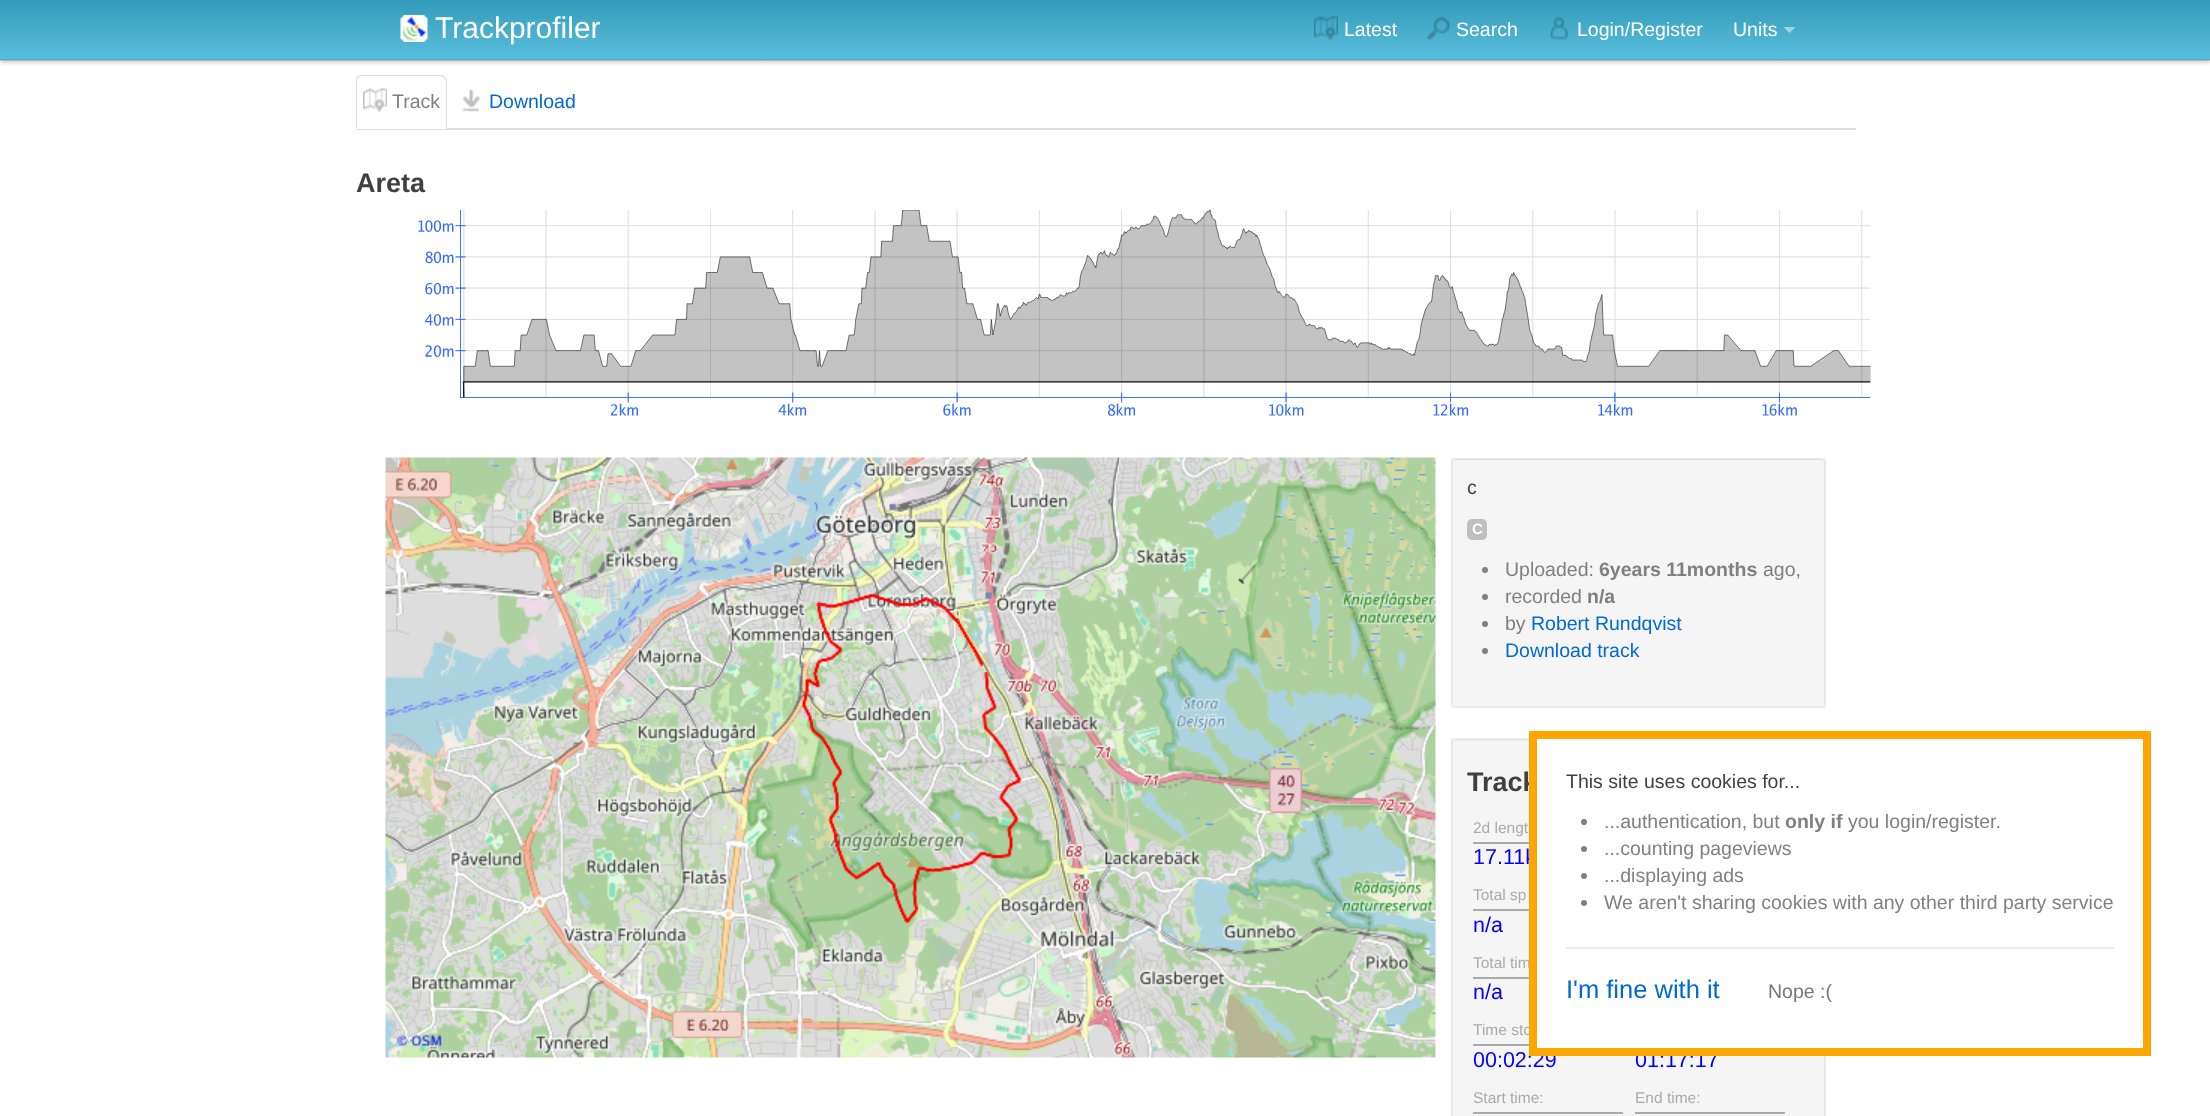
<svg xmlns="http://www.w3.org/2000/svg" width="2210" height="1116">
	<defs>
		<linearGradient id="g1" gradientUnits="userSpaceOnUse" x1="1106" y1="0" x2="1106" y2="60"><stop offset="0" stop-color="#339BB9" /><stop offset="1" stop-color="#5ABFDD" /></linearGradient>
	</defs>
	<rect width="100%" height="100%" fill="#FFFFFF" />
	<rect x="0" y="2" width="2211" height="60" fill="#000000" fill-opacity="0.25" filter="blur(2px)" />
	<rect x="0" y="0" width="2210" height="60" fill="url(#g1)" />
	<rect x="0" y="59" width="2210" height="2" fill="#000000" fill-opacity="0.1" />
	<image x="400" y="15" width="28" height="27" href="assets/img1.png" />
	<text x="435" y="38" font-family="Liberation Sans" font-size="30" fill="#FFFFFF">Trackprofiler</text>
	<image x="1314" y="16" width="24" height="25" href="assets/img2.png" />
	<text x="1344" y="36" font-family="Liberation Sans" font-size="19.5" fill="#FFFFFF">Latest</text>
	<image x="1426" y="16" width="25" height="24" href="assets/img3.png" />
	<text x="1456" y="36" font-family="Liberation Sans" font-size="19.5" fill="#FFFFFF">Search</text>
	<image x="1550" y="16" width="19" height="24" href="assets/img4.png" />
	<g font-family="Liberation Sans" font-size="19.5" fill="#FFFFFF">
		<text x="1577" y="36">Login/Register</text>
		<text x="1733" y="36">Units</text>
	</g>
	<path d="M1783.5 27H1795.5L1789.5 33Z" fill="#FFFFFF" fill-opacity="0.5" />
	<rect x="356" y="128" width="1500" height="2" fill="#DDDDDD" />
	<path d="M362 75H441C444.5 75 447 77.5 447 81V129H356V81C356 77.5 358.5 75 362 75Z" fill="#FFFFFF" />
	<path d="M362 75C360 75 358 76 357 77L358 78L361 76H441L444 78L445 77C444 76 442 75 441 75Z" fill="#DDDDDD" />
	<path d="M447 129V81C447 80 446 78 445 77L444 78C445 79 446 80 446 81V128Z" fill="#DDDDDD" />
	<path d="M357 77C356 78 356 80 356 81V128H357V81C357 80 357 79 358 78Z" fill="#DDDDDD" />
	<image x="363" y="88" width="24" height="25" href="assets/img5.png" />
	<text x="392" y="108" font-family="Liberation Sans" font-size="19.5" fill="#808080">Track</text>
	<image x="462" y="89" width="19" height="23" href="assets/img6.png" />
	<text x="489" y="108" font-family="Liberation Sans" font-size="19.5" fill="#0069D6">Download</text>
	<text x="356" y="192" font-family="Liberation Sans" font-size="27" font-weight="700" fill="#404040">Areta</text>
	<image x="418" y="210" width="1453" height="206" href="assets/img7.png" />
	<image x="385" y="457" width="1051" height="601" href="assets/img8.png" />
	<rect x="1451" y="458" width="375" height="250" rx="6" fill="#F5F5F5" />
	<path d="M1456 460H1820C1822 460 1824 463 1824 465V464C1824 461 1822 459 1819 459H1457C1454 459 1452 461 1452 464V465C1452 463 1454 460 1456 460Z" fill="#E9E9E9" />
	<rect x="1452" y="459" width="373" height="248" fill="none" stroke="#000000" stroke-opacity="0.05" stroke-width="2" />
	<text x="1467" y="494" font-family="Liberation Sans" font-size="19.5" fill="#404040">c</text>
	<rect x="1467" y="519" width="20" height="21" rx="5" fill="#BFBFBF" />
	<text x="1472" y="534" font-family="Liberation Sans" font-size="15" font-weight="700" fill="#FFFFFF">C</text>
	<circle cx="1485" cy="570" r="3" fill="#808080" />
	<text x="1505" y="576" font-family="Liberation Sans" font-size="19.5" fill="#808080">Uploaded:</text>
	<text x="1599" y="576" font-family="Liberation Sans" font-size="19.5" font-weight="700" fill="#808080">6years 11months</text>
	<text x="1763" y="576" font-family="Liberation Sans" font-size="19.5" fill="#808080">ago,</text>
	<circle cx="1485" cy="597" r="3" fill="#808080" />
	<text x="1505" y="603" font-family="Liberation Sans" font-size="19.5" fill="#808080">recorded</text>
	<text x="1587" y="603" font-family="Liberation Sans" font-size="19.5" font-weight="700" fill="#808080">n/a</text>
	<circle cx="1485" cy="624" r="3" fill="#808080" />
	<text x="1505" y="630" font-family="Liberation Sans" font-size="19.5" fill="#808080">by</text>
	<text x="1531" y="630" font-family="Liberation Sans" font-size="19.5" fill="#0069D6">Robert Rundqvist</text>
	<circle cx="1485" cy="651" r="3" fill="#808080" />
	<text x="1505" y="657" font-family="Liberation Sans" font-size="19.5" fill="#0069D6">Download track</text>
	<rect x="1451" y="738" width="375" height="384" rx="6" fill="#F5F5F5" />
	<path d="M1456 741H1820C1822 741 1824 743 1824 746V745C1824 742 1822 740 1819 740H1457C1454 740 1452 742 1452 745V746C1452 743 1454 741 1456 741Z" fill="#E9E9E9" />
	<rect x="1452" y="739" width="373" height="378" fill="none" stroke="#000000" stroke-opacity="0.05" stroke-width="2" />
	<text x="1467" y="791" font-family="Liberation Sans" font-size="27" font-weight="700" fill="#404040">Track</text>
	<rect x="1473" y="842" width="56" height="2" fill="#AAAAAA" />
	<text x="1473" y="833" font-family="Liberation Sans" font-size="15.5" fill="#AAAAAA">2d lengt</text>
	<text x="1473" y="864" font-family="Liberation Sans" font-size="21.5" fill="#0000FF">17.11k</text>
	<rect x="1473" y="909" width="56" height="2" fill="#AAAAAA" />
	<text x="1473" y="900" font-family="Liberation Sans" font-size="15.5" fill="#AAAAAA">Total sp</text>
	<text x="1473" y="932" font-family="Liberation Sans" font-size="21.5" fill="#0000FF">n/a</text>
	<rect x="1473" y="977" width="56" height="2" fill="#AAAAAA" />
	<text x="1473" y="968" font-family="Liberation Sans" font-size="15.5" fill="#AAAAAA">Total tim</text>
	<text x="1473" y="999" font-family="Liberation Sans" font-size="21.5" fill="#0000FF">n/a</text>
	<rect x="1473" y="1044" width="56" height="2" fill="#AAAAAA" />
	<text x="1473" y="1035" font-family="Liberation Sans" font-size="15.5" fill="#AAAAAA">Time sto</text>
	<g font-family="Liberation Sans" font-size="21.5" fill="#0000FF">
		<text x="1473" y="1067">00:02:29</text>
		<text x="1635" y="1067">01:17:17</text>
	</g>
	<rect x="1473" y="1112" width="150" height="2" fill="#AAAAAA" />
	<text x="1473" y="1103" font-family="Liberation Sans" font-size="15.5" fill="#AAAAAA">Start time:</text>
	<rect x="1635" y="1112" width="150" height="2" fill="#AAAAAA" />
	<text x="1635" y="1103" font-family="Liberation Sans" font-size="15.5" fill="#AAAAAA">End time:</text>
	<rect x="1537" y="739" width="289" height="309" fill="#FFFFFF" />
	<rect x="1533" y="735" width="614" height="317" fill="none" stroke="#FFA500" stroke-width="8" />
	<text x="1566" y="788" font-family="Liberation Sans" font-size="19.5" fill="#404040">This site uses cookies for...</text>
	<circle cx="1584" cy="822" r="3" fill="#808080" />
	<text x="1604" y="828" font-family="Liberation Sans" font-size="19.5" fill="#808080">...authentication, but</text>
	<text x="1785" y="828" font-family="Liberation Sans" font-size="19.5" font-weight="700" fill="#808080">only if</text>
	<text x="1848" y="828" font-family="Liberation Sans" font-size="19.5" fill="#808080">you login/register.</text>
	<circle cx="1584" cy="849" r="3" fill="#808080" />
	<text x="1604" y="855" font-family="Liberation Sans" font-size="19.5" fill="#808080">...counting pageviews</text>
	<circle cx="1584" cy="876" r="3" fill="#808080" />
	<text x="1604" y="882" font-family="Liberation Sans" font-size="19.5" fill="#808080">...displaying ads</text>
	<circle cx="1584" cy="903" r="3" fill="#808080" />
	<text x="1604" y="909" font-family="Liberation Sans" font-size="19.5" fill="#808080">We aren't sharing cookies with any other third party service</text>
	<rect x="1566" y="947" width="548" height="2" fill="#EEEEEE" />
	<text x="1566" y="998" font-family="Liberation Sans" font-size="25.5" fill="#0069D6">I'm fine with it</text>
	<text x="1768" y="998" font-family="Liberation Sans" font-size="19.5" fill="#777777">Nope :(</text>
</svg>
